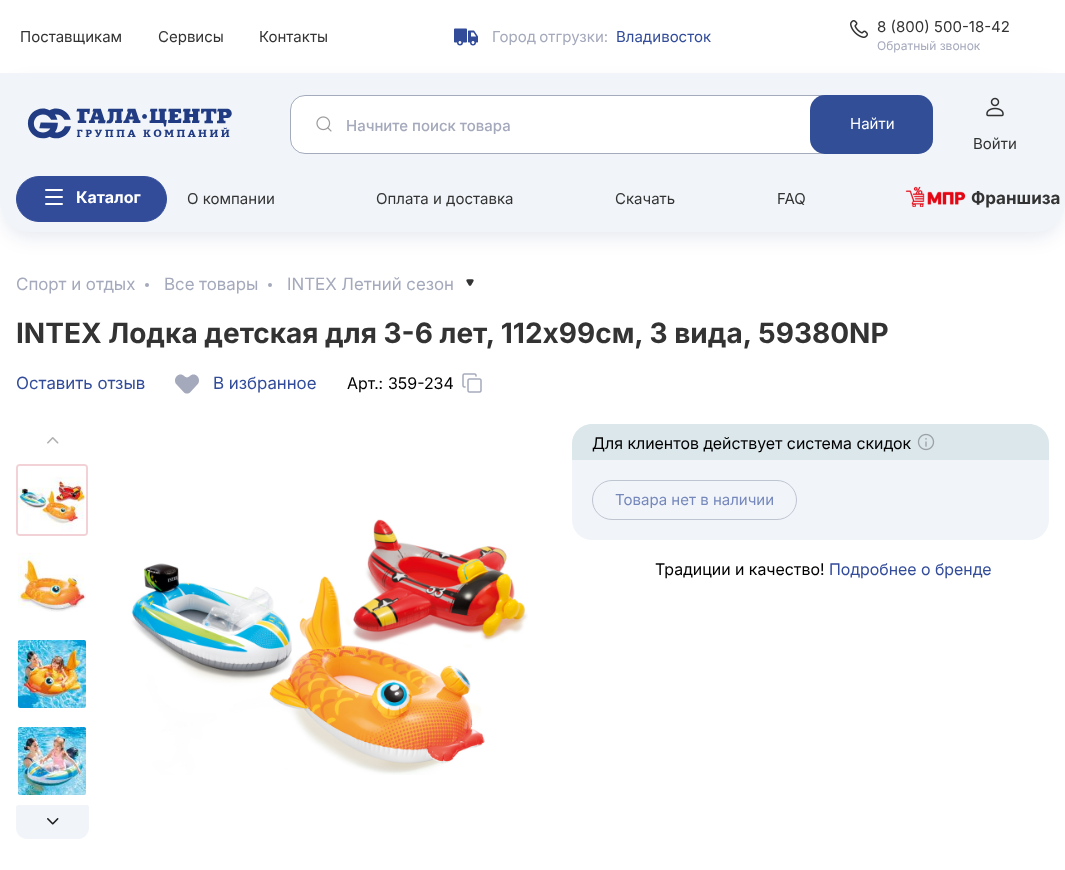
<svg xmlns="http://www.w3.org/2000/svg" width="1065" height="870">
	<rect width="100%" height="100%" fill="#FFFFFF" />
	<g font-family="Inter" font-size="15" fill="#333333">
		<text x="20" y="42">Поставщикам</text>
		<text x="158" y="42">Сервисы</text>
		<text x="259" y="42">Контакты</text>
	</g>
	<image x="454" y="28" width="24" height="18" href="assets/img1.png" />
	<text x="492" y="42" word-spacing="-1" font-family="Inter" font-size="15" fill="#A4A9BB">Город отгрузки:</text>
	<text x="616" y="42" font-family="Inter" font-size="15" fill="#324C9A">Владивосток</text>
	<image x="850" y="20" width="18" height="18" href="assets/img2.png" />
	<text x="877" y="32" font-family="Inter" font-size="15" fill="#333333">8 (800) 500-18-42</text>
	<text x="877" y="50" font-family="Inter" font-size="12" fill="#A4A9BB">Обратный звонок</text>
	<rect x="4" y="85" width="1057" height="151" rx="26" fill="#021861" fill-opacity="0.11" filter="blur(10px)" />
	<path d="M0 73H1065V202C1065 218.5 1051.5 232 1035 232H30C13.5 232 0 218.5 0 202Z" fill="#F1F5F9" />
	<image x="27" y="108" width="205" height="31" href="assets/img3.png" />
	<rect x="291" y="96" width="641" height="57" rx="14" fill="#FFFFFF" />
	<rect x="290.5" y="95.5" width="642" height="58" rx="14.5" fill="none" stroke="#010E3D" stroke-opacity="0.32" />
	<image x="316" y="116" width="16" height="16" href="assets/img4.png" />
	<text x="346" y="131" font-family="Inter" font-size="15" font-weight="500" fill="#A4A9BB">Начните поиск товара</text>
	<rect x="810" y="95" width="123" height="59" rx="15" fill="#314E97" />
	<text x="850" y="129" font-family="Inter" font-size="15" fill="#FFFFFF">Найти</text>
	<image x="986" y="97" width="18" height="20" href="assets/img5.png" />
	<text x="973" y="149" font-family="Inter" font-size="15" fill="#333333">Войти</text>
	<rect x="16.5" y="176.5" width="150" height="45" rx="22.5" fill="#324C9A" stroke="#324C9A" />
	<rect x="45" y="189" width="18" height="2" rx="1" fill="#FFFFFF" />
	<rect x="45" y="196" width="18" height="2" rx="1" fill="#FFFFFF" />
	<rect x="45" y="203" width="18" height="2" rx="1" fill="#FFFFFF" />
	<text x="76" y="203" font-family="Inter" font-size="16" font-weight="700" fill="#FFFFFF">Каталог</text>
	<g font-family="Inter" font-size="15" fill="#333333">
		<text x="187" y="204">О компании</text>
		<text x="376" y="204">Оплата и доставка</text>
		<text x="615" y="204">Скачать</text>
		<text x="777" y="204">FAQ</text>
	</g>
	<image x="905" y="186" width="61" height="21" href="assets/img6.png" />
	<text x="971" y="204" font-family="Inter" font-size="17" font-weight="700" fill="#333333">Франшиза</text>
	<text x="16" y="290" font-family="'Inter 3'" font-size="17" fill="#A4A9BB">Спорт и отдых</text>
	<circle cx="147" cy="285" r="2" fill="#A4A9BB" />
	<text x="164" y="290" font-family="'Inter 3'" font-size="17" fill="#A4A9BB">Все товары</text>
	<circle cx="270" cy="285" r="2" fill="#A4A9BB" />
	<text x="287" y="290" font-family="'Inter 3'" font-size="17" fill="#A4A9BB">INTEX Летний сезон</text>
	<image x="466" y="279" width="8" height="7" href="assets/img7.png" />
	<text x="16" y="343" font-family="Inter" font-size="28" font-weight="700" fill="#333333">INTEX Лодка детская для 3-6 лет, 112х99см, 3 вида, 59380NP</text>
	<text x="16" y="389" font-family="'Inter 3'" font-size="17" fill="#324C9A">Оставить отзыв</text>
	<image x="175" y="374" width="24" height="20" href="assets/img8.png" />
	<text x="213" y="389" font-family="'Inter 3'" font-size="17" fill="#324C9A">В избранное</text>
	<g font-family="'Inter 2'" font-size="16" fill="#000000">
		<text x="347" y="389">Арт.:</text>
		<text x="388" y="389">359-234</text>
	</g>
	<image x="462" y="373" width="20" height="20" href="assets/img9.png" />
	<image x="47" y="437" width="12" height="7" href="assets/img10.png" />
	<rect x="17" y="465" width="70" height="70" rx="3" fill="none" stroke="#F2D2D6" stroke-width="2" />
	<image x="18" y="466" width="68" height="68" href="assets/img11.png" />
	<image x="18" y="553" width="68" height="59" href="assets/img12.png" />
	<image x="18" y="640" width="68" height="68" href="assets/img13.png" />
	<image x="18" y="727" width="68" height="68" href="assets/img14.png" />
	<path d="M18 805H87C88 805 89 806 89 807V828C89 834 84 839 78 839H27C21 839 16 834 16 828V807C16 806 17 805 18 805Z" fill="#F1F5F9" />
	<image x="47" y="818" width="12" height="7" href="assets/img15.png" />
	<image x="131" y="519" width="397" height="256" href="assets/img16.png" />
	<rect x="572" y="424" width="477" height="116" rx="20" fill="#F1F5F9" />
	<path d="M592 424H1029C1040 424 1049 433 1049 444V460H572V444C572 433 581 424 592 424Z" fill="#DCE7EB" />
	<text x="592" y="449" font-family="'Inter 2'" font-size="16" fill="#000000">Для клиентов действует система скидок</text>
	<image x="917" y="433" width="18" height="18" href="assets/img17.png" />
	<rect x="592.5" y="480.5" width="204" height="39" rx="19.5" fill="none" stroke="#BFC4D1" />
	<text x="615" y="505" font-family="Inter" font-size="15" fill="#7587BB">Товара нет в наличии</text>
	<text x="655" y="575" font-family="'Inter 2'" font-size="16" fill="#000000">Традиции и качество!</text>
	<text x="829" y="575" font-family="'Inter 2'" font-size="16" fill="#324C9A">Подробнее о бренде</text>
</svg>
